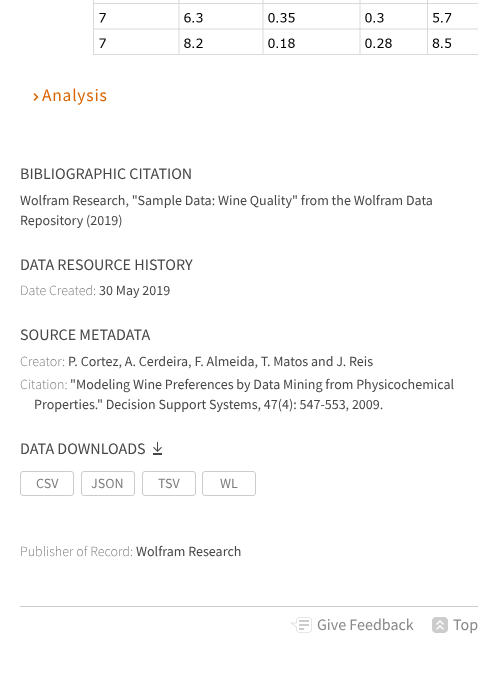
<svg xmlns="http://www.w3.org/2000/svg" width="498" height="698">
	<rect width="100%" height="100%" fill="#FFFFFF" />
	<image x="93" y="0" width="385" height="55" href="assets/img1.png" />
	<image x="33" y="93" width="6" height="8" href="assets/img2.png" />
	<text x="42" y="101" font-family="Source Sans Pro" font-size="17.5" letter-spacing="0.75" fill="#D96500">Analysis</text>
	<text x="20" y="179" font-family="Source Sans Pro" font-size="16" fill="#474747">BIBLIOGRAPHIC CITATION</text>
	<g font-family="Source Sans Pro" font-size="14" fill="#474747">
		<text x="20" y="205">Wolfram Research, "Sample Data: Wine Quality" from the Wolfram Data</text>
		<text x="20" y="225">Repository (2019)</text>
	</g>
	<text x="20" y="270" font-family="Source Sans Pro" font-size="16" fill="#474747">DATA RESOURCE HISTORY</text>
	<text x="20" y="295" font-family="Source Sans Pro" font-size="14" font-weight="300" fill="#7D7D7D">Date Created:</text>
	<text x="99" y="295" font-family="Source Sans Pro" font-size="14" fill="#474747">30 May 2019</text>
	<text x="20" y="340" font-family="Source Sans Pro" font-size="16" fill="#474747">SOURCE METADATA</text>
	<text x="20" y="366" font-family="Source Sans Pro" font-size="14" font-weight="300" fill="#7D7D7D">Creator:</text>
	<text x="68" y="366" font-family="Source Sans Pro" font-size="14" fill="#474747">P. Cortez, A. Cerdeira, F. Almeida, T. Matos and J. Reis</text>
	<text x="20" y="389" font-family="Source Sans Pro" font-size="14" font-weight="300" fill="#7D7D7D">Citation:</text>
	<g font-family="Source Sans Pro" font-size="14" fill="#474747">
		<text x="70" y="389">"Modeling Wine Preferences by Data Mining from Physicochemical</text>
		<text x="34" y="409">Properties." Decision Support Systems, 47(4): 547-553, 2009.</text>
	</g>
	<text x="20" y="454" font-family="Source Sans Pro" font-size="16" fill="#474747">DATA DOWNLOADS</text>
	<image x="153" y="442" width="9" height="13" href="assets/img3.png" />
	<rect x="20.5" y="471.5" width="53" height="24" rx="2.5" fill="none" stroke="#CCCCCC" />
	<text x="36" y="488" font-family="Source Sans Pro" font-size="14" fill="#7D7D7D">CSV</text>
	<rect x="81.5" y="471.5" width="53" height="24" rx="2.5" fill="none" stroke="#CCCCCC" />
	<text x="91" y="488" font-family="Source Sans Pro" font-size="14" fill="#7D7D7D">JSON</text>
	<rect x="142.5" y="471.5" width="53" height="24" rx="2.5" fill="none" stroke="#CCCCCC" />
	<text x="158" y="488" font-family="Source Sans Pro" font-size="14" fill="#7D7D7D">TSV</text>
	<rect x="202.5" y="471.5" width="53" height="24" rx="2.5" fill="none" stroke="#CCCCCC" />
	<text x="220" y="488" font-family="Source Sans Pro" font-size="14" fill="#7D7D7D">WL</text>
	<text x="20" y="556" font-family="Source Sans Pro" font-size="14" font-weight="300" fill="#7D7D7D">Publisher of Record:</text>
	<text x="136" y="556" font-family="Source Sans Pro" font-size="14" fill="#474747">Wolfram Research</text>
	<rect x="20" y="606" width="458" height="1" fill="#CCCCCC" />
	<image x="290" y="617" width="22" height="16" href="assets/img4.png" />
	<text x="317" y="630" font-family="Source Sans Pro" font-size="16" fill="#888888">Give Feedback</text>
	<image x="432" y="617" width="16" height="16" href="assets/img5.png" />
	<text x="453" y="630" font-family="Source Sans Pro" font-size="16" fill="#888888">Top</text>
</svg>
